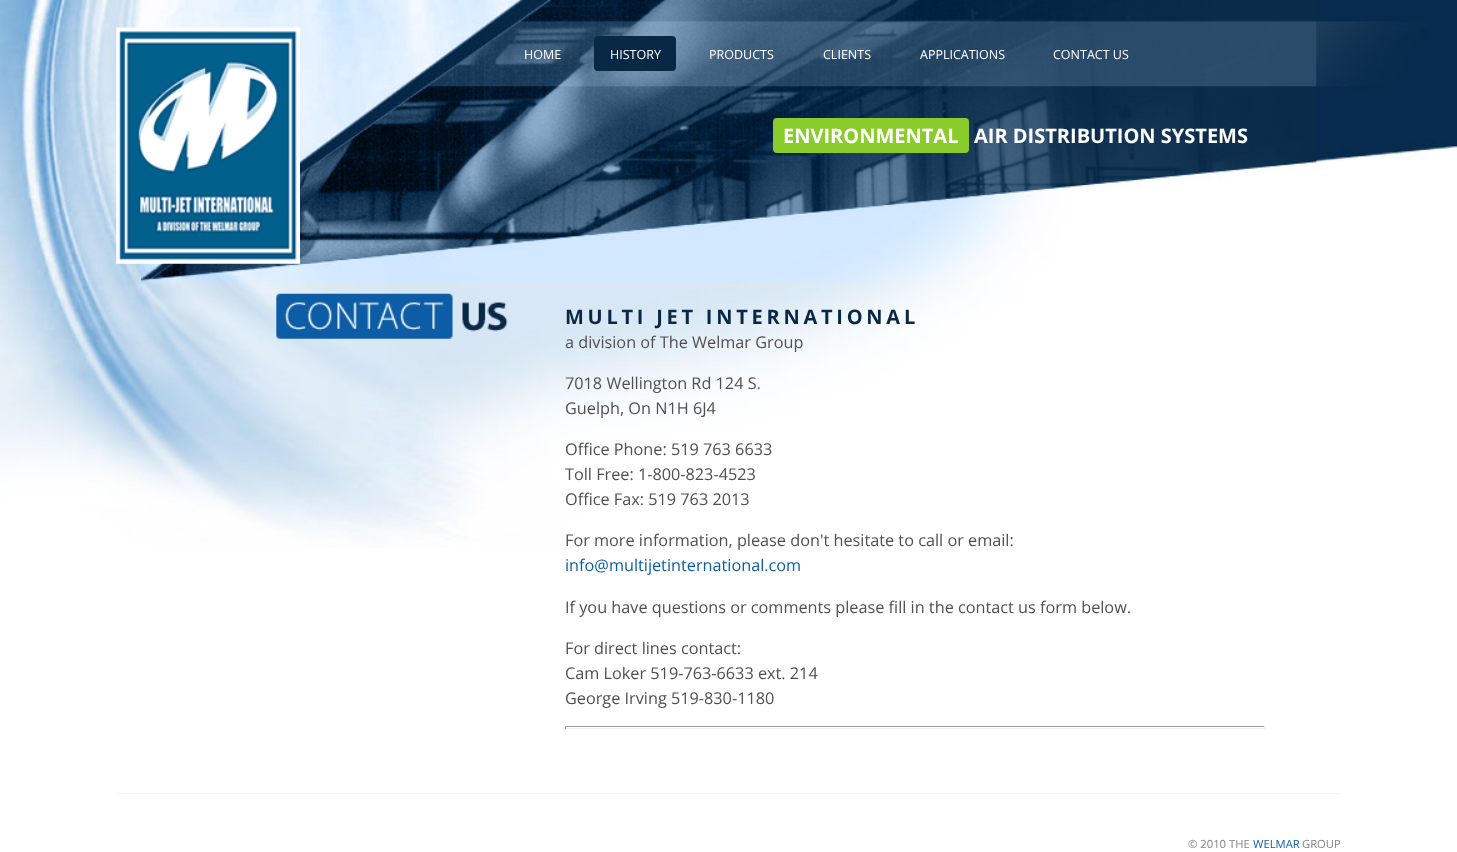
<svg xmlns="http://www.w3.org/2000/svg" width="1457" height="852">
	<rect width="100%" height="100%" fill="#FFFFFF" />
	<image x="0" y="0" width="1457" height="548" href="assets/img1.png" />
	<image x="141" y="0" width="1176" height="282" href="assets/img2.png" />
	<image x="116" y="27" width="184" height="237" href="assets/img3.png" />
	<text x="524" y="59" font-family="Open Sans" font-size="12.5" fill="#FFFFFF">HOME</text>
	<rect x="594" y="36" width="82" height="35" rx="4" fill="#082845" />
	<g font-family="Open Sans" font-size="12.5" fill="#FFFFFF">
		<text x="610" y="59">HISTORY</text>
		<text x="709" y="59">PRODUCTS</text>
		<text x="823" y="59">CLIENTS</text>
		<text x="920" y="59">APPLICATIONS</text>
		<text x="1053" y="59">CONTACT US</text>
	</g>
	<rect x="773" y="118" width="196" height="35" rx="4" fill="#8ACC2B" />
	<g font-family="Open Sans" font-size="20" font-weight="700" fill="#FFFFFF">
		<text x="783" y="143">ENVIRONMENTAL</text>
		<text x="974" y="143">AIR DISTRIBUTION SYSTEMS</text>
	</g>
	<image x="276" y="293" width="232" height="46" href="assets/img4.png" />
	<text x="565" y="324" font-family="Open Sans" font-size="20" font-weight="700" letter-spacing="3.75" fill="#082845">MULTI JET INTERNATIONAL</text>
	<g font-family="Open Sans" font-size="16.25" fill="#505050">
		<text x="565" y="348">a division of The Welmar Group</text>
		<text x="565" y="389">7018 Wellington Rd 124 S.</text>
		<text x="565" y="414">Guelph, On N1H 6J4</text>
		<text x="565" y="455">Office Phone: 519 763 6633</text>
		<text x="565" y="480">Toll Free: 1-800-823-4523</text>
		<text x="565" y="505">Office Fax: 519 763 2013</text>
		<text x="565" y="546">For more information, please don't hesitate to call or email:</text>
	</g>
	<text x="565" y="571" font-family="Open Sans" font-size="16.25" fill="#0D5DA6">info@multijetinternational.com</text>
	<g font-family="Open Sans" font-size="16.25" fill="#505050">
		<text x="565" y="613">If you have questions or comments please fill in the contact us form below.</text>
		<text x="565" y="654">For direct lines contact:</text>
		<text x="565" y="679">Cam Loker 519-763-6633 ext. 214</text>
		<text x="565" y="704">George Irving 519-830-1180</text>
	</g>
	<rect x="565" y="726" width="700" height="1" fill="#9F9F9F" />
	<rect x="1264" y="726" width="1" height="3" fill="#EEEEEE" />
	<rect x="565" y="728" width="700" height="1" fill="#EEEEEE" />
	<rect x="565" y="726" width="1" height="3" fill="#9F9F9F" />
	<rect x="116" y="793" width="1225" height="1" fill="#F5F5F5" />
	<text x="1188" y="848" font-family="Open Sans" font-size="11.25" fill="#858585">© 2010 THE</text>
	<text x="1253" y="848" font-family="Open Sans" font-size="11.25" fill="#0D5DA6">WELMAR</text>
	<text x="1302" y="848" font-family="Open Sans" font-size="11.25" fill="#858585">GROUP</text>
</svg>
